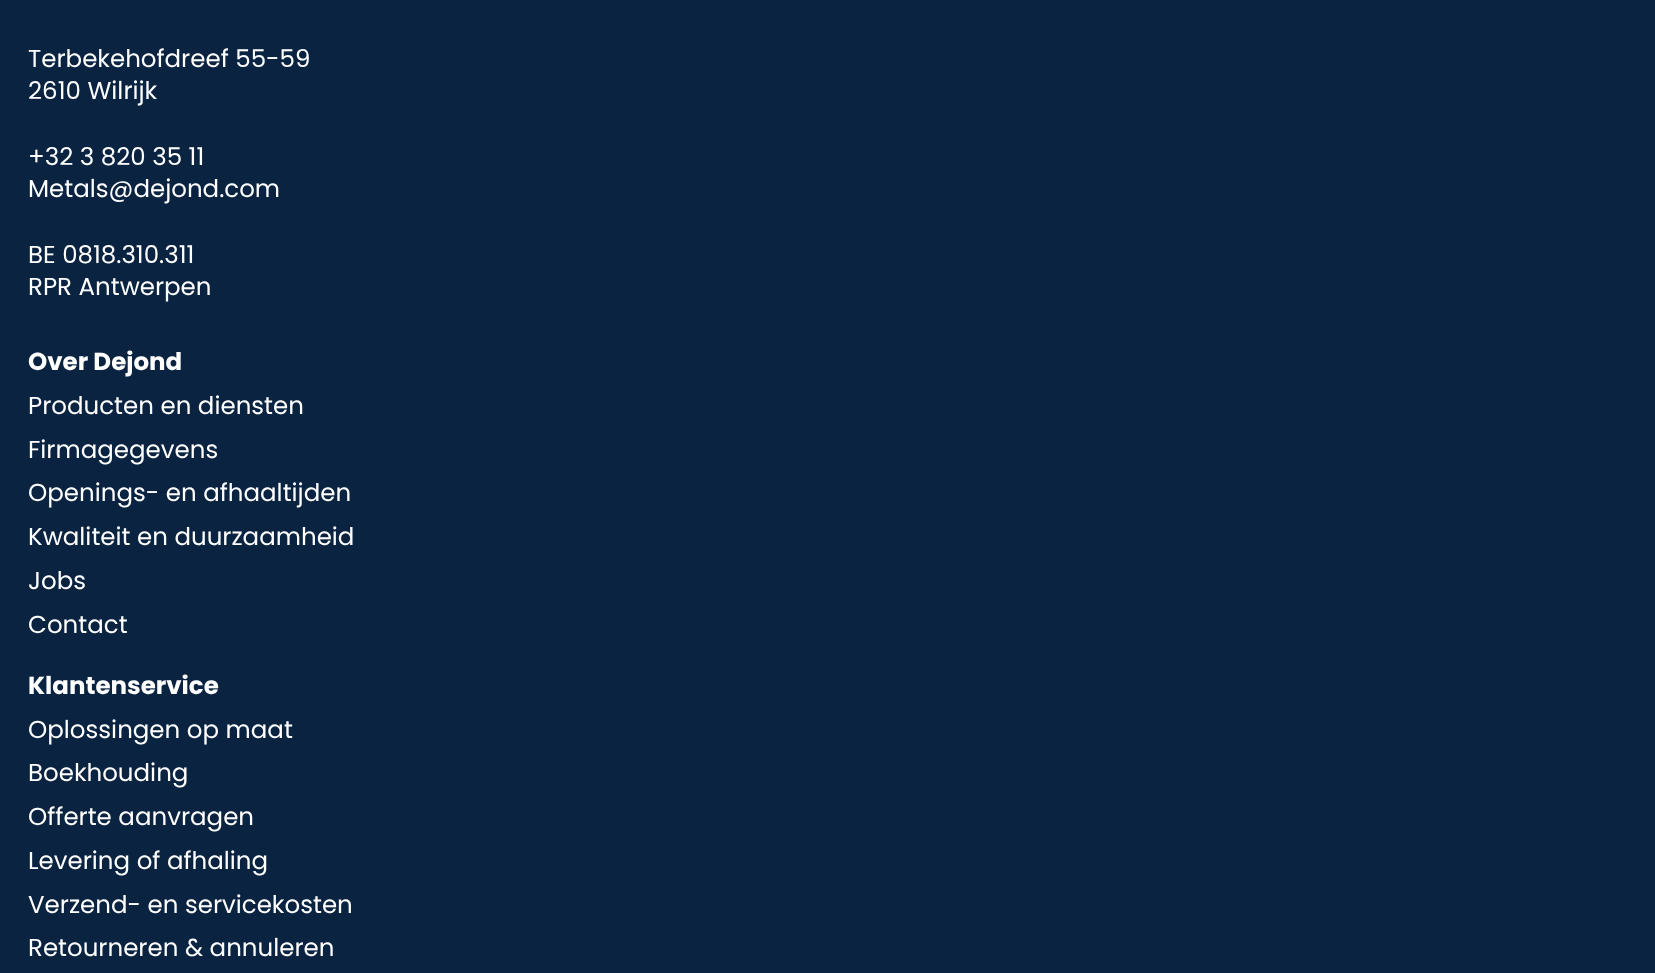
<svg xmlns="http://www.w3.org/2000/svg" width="1655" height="973">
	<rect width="100%" height="100%" fill="#092341" />
	<g font-family="Poppins" font-size="24.5" fill="#FFFFFF">
		<text x="28" y="67">Terbekehofdreef 55-59</text>
		<text x="28" y="99">2610 Wilrijk</text>
		<text x="28" y="165">+32 3 820 35 11</text>
		<text x="28" y="197">Metals@dejond.com</text>
		<text x="28" y="263">BE 0818.310.311</text>
		<text x="28" y="295">RPR Antwerpen</text>
	</g>
	<text x="28" y="370" font-family="Poppins" font-size="24.5" font-weight="700" fill="#FFFFFF">Over Dejond</text>
	<g font-family="Poppins" font-size="24.5" fill="#FFFFFF">
		<text x="28" y="414">Producten en diensten</text>
		<text x="28" y="458">Firmagegevens</text>
		<text x="28" y="501">Openings- en afhaaltijden</text>
		<text x="28" y="545">Kwaliteit en duurzaamheid</text>
		<text x="28" y="589">Jobs</text>
		<text x="28" y="633">Contact</text>
	</g>
	<text x="28" y="694" font-family="Poppins" font-size="24.5" font-weight="700" fill="#FFFFFF">Klantenservice</text>
	<g font-family="Poppins" font-size="24.5" fill="#FFFFFF">
		<text x="28" y="738">Oplossingen op maat</text>
		<text x="28" y="781">Boekhouding</text>
		<text x="28" y="825">Offerte aanvragen</text>
		<text x="28" y="869">Levering of afhaling</text>
		<text x="28" y="913">Verzend- en servicekosten</text>
		<text x="28" y="956">Retourneren &amp; annuleren</text>
	</g>
</svg>
